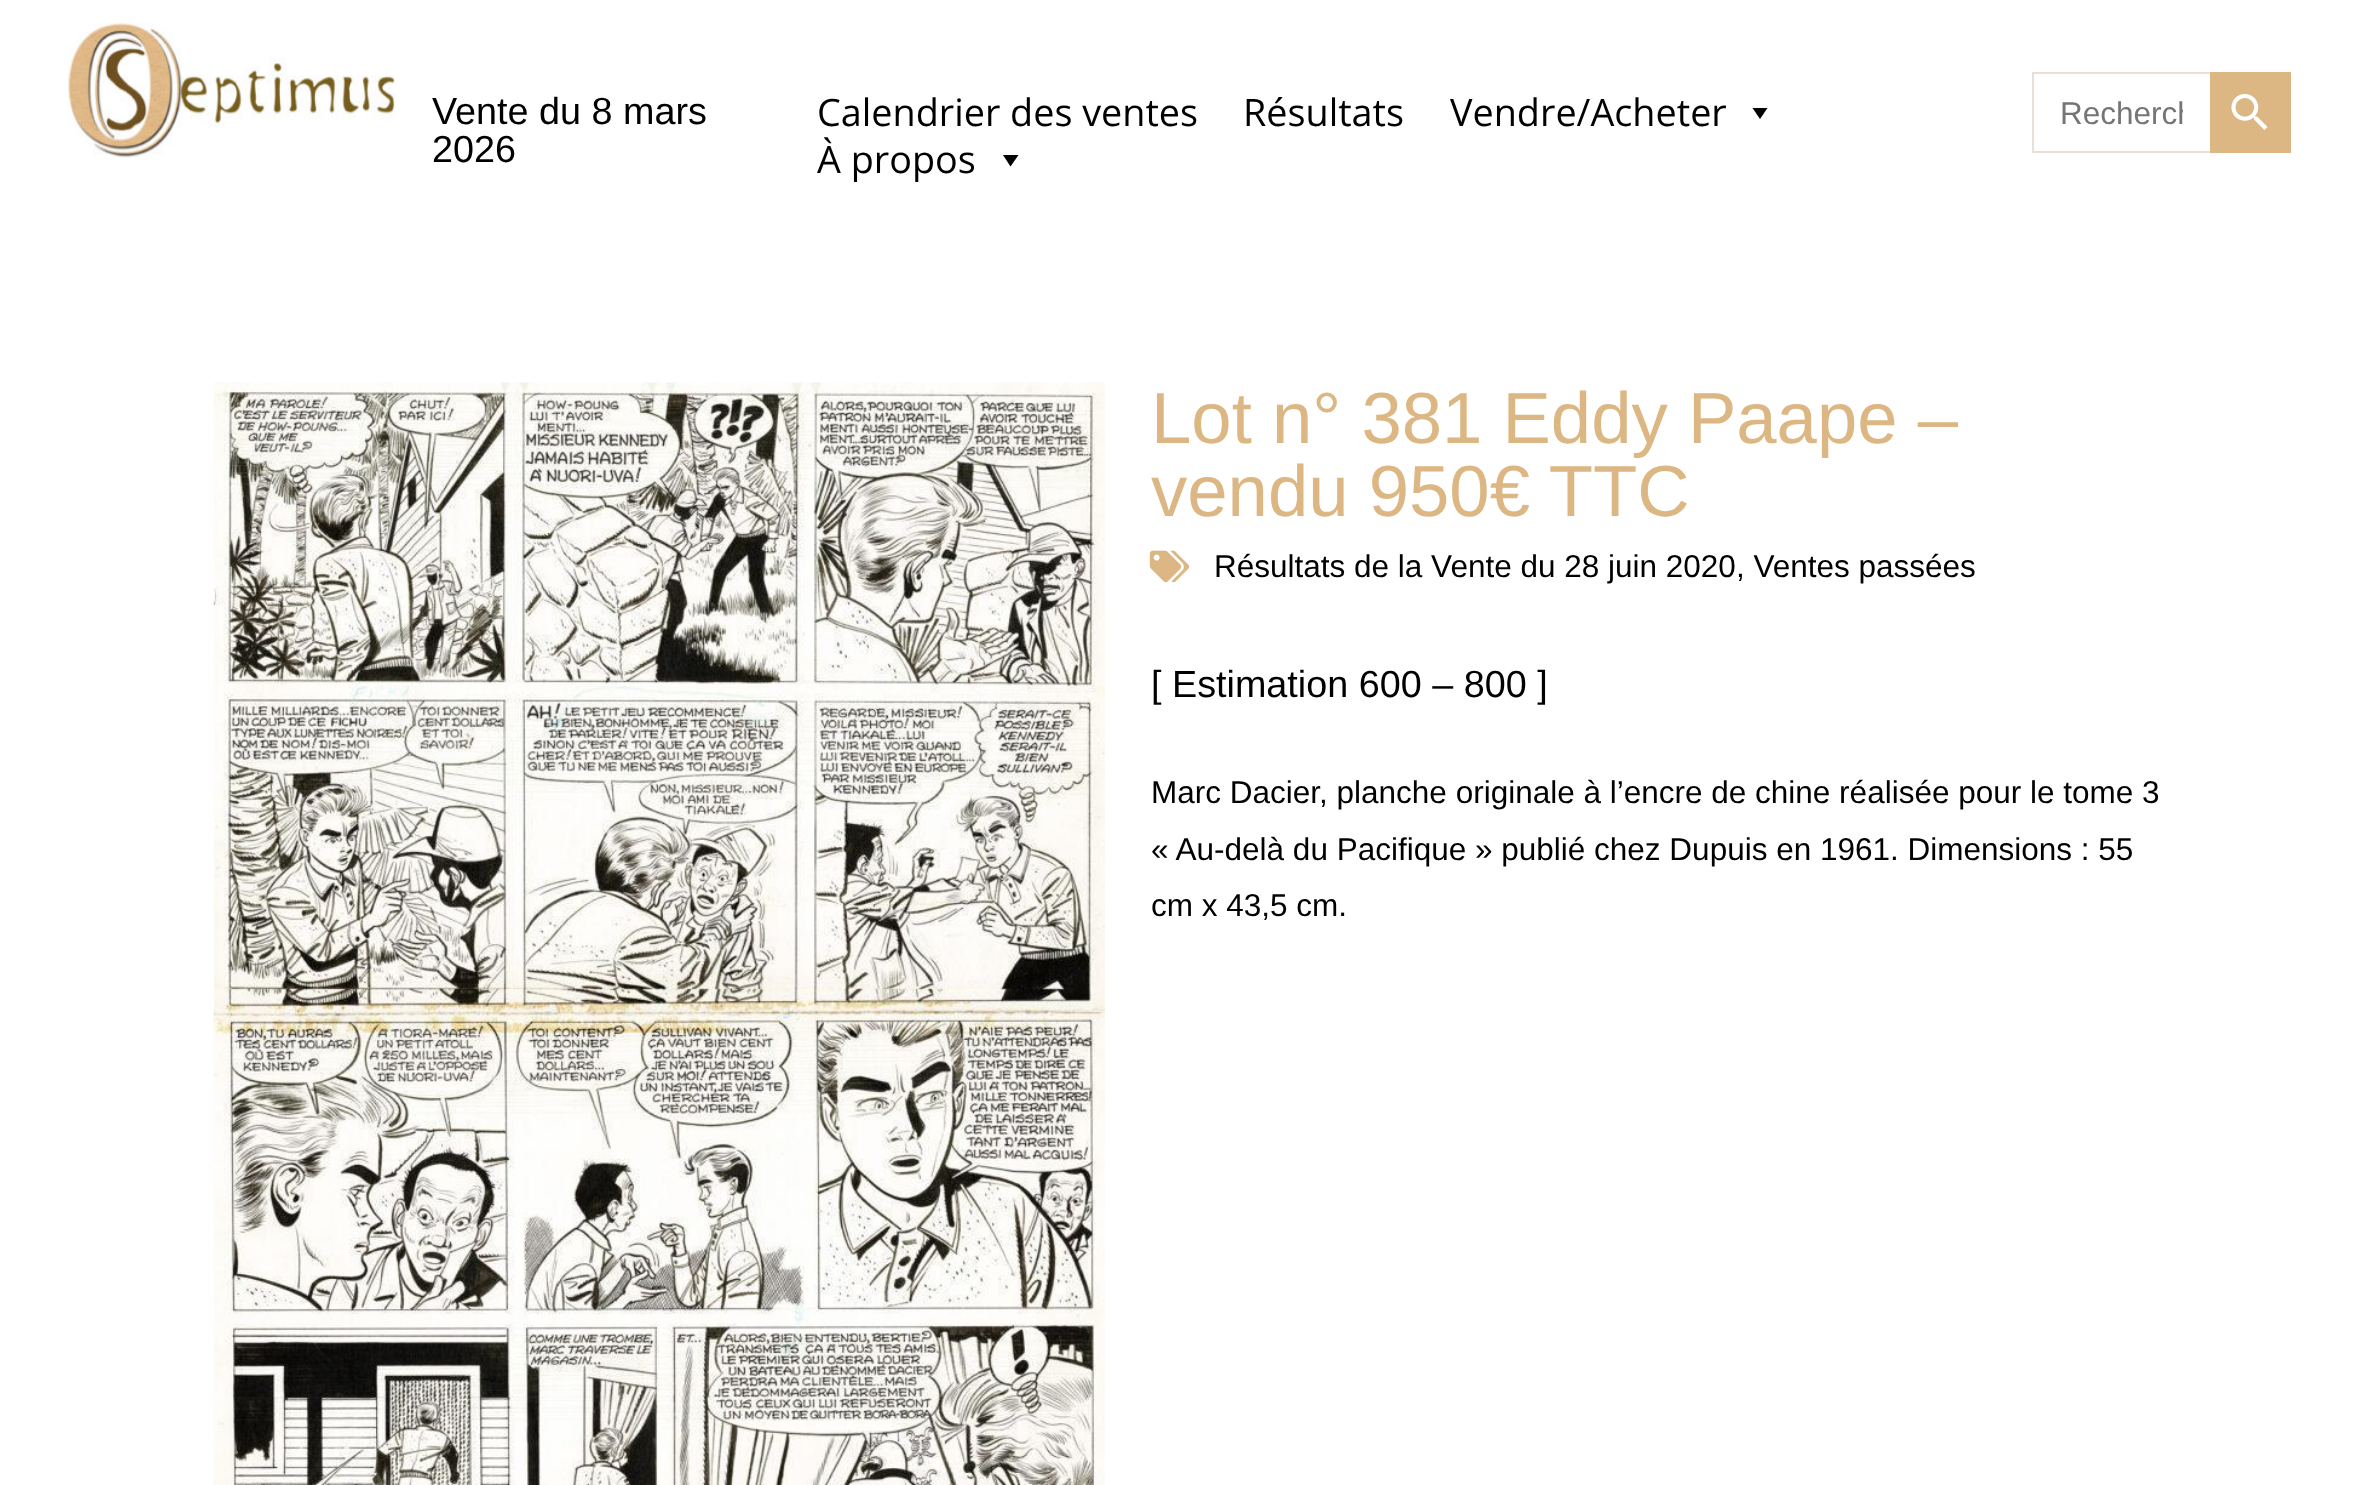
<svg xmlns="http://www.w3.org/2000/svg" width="2380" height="1485">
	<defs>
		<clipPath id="clip1"><rect x="2061" y="95" width="122" height="36" /></clipPath>
	</defs>
	<rect width="100%" height="100%" fill="#FFFFFF" />
	<image x="67" y="22" width="329" height="136" href="assets/img1.png" />
	<g font-family="Liberation Sans" font-size="37.75" fill="#000000">
		<text x="432" y="124">Vente du 8 mars</text>
		<text x="432" y="162">2026</text>
	</g>
	<g font-family="Open Sans" font-size="37.75" fill="#000000">
		<text x="817" y="126">Calendrier des ventes</text>
		<text x="1243" y="126">Résultats</text>
		<text x="1450" y="126">Vendre/Acheter</text>
	</g>
	<path d="M1767.5 108L1760 119L1752.5 108Z" fill="#000000" />
	<text x="817" y="173" font-family="Open Sans" font-size="37.75" fill="#000000">À propos</text>
	<path d="M1018.5 155L1010.5 166.5L1003 155Z" fill="#000000" />
	<rect x="2032" y="72" width="178" height="2" fill="#E8DFD7" />
	<rect x="2032" y="151" width="178" height="2" fill="#E8DFD7" />
	<rect x="2032" y="72" width="2" height="81" fill="#E8DFD7" />
	<g clip-path="url(#clip1)">
		<text x="2060" y="124" font-family="Liberation Sans" font-size="31.5" fill="#757575">Recherch</text>
	</g>
	<rect x="2210" y="72" width="81" height="81" fill="#DCB783" />
	<image x="2231" y="94" width="37" height="36" href="assets/img2.png" />
	<image x="213" y="382" width="892" height="1103" href="assets/img3.png" />
	<g font-family="Liberation Sans" font-size="72.5" fill="#DCB783">
		<text x="1151" y="443">Lot n° 381 Eddy Paape –</text>
		<text x="1151" y="516">vendu 950€ TTC</text>
	</g>
	<image x="1149" y="550" width="41" height="33" href="assets/img4.png" />
	<text x="1214" y="577" font-family="Liberation Sans" font-size="31.5" fill="#000000">Résultats de la Vente du 28 juin 2020, Ventes passées</text>
	<text x="1151" y="697" font-family="Liberation Sans" font-size="37.75" fill="#000000">[ Estimation 600 – 800 ]</text>
	<g font-family="Liberation Sans" font-size="31.5" fill="#000000">
		<text x="1151" y="803">Marc Dacier, planche originale à l’encre de chine réalisée pour le tome 3</text>
		<text x="1151" y="860">« Au-delà du Pacifique » publié chez Dupuis en 1961. Dimensions : 55</text>
		<text x="1151" y="916">cm x 43,5 cm.</text>
	</g>
</svg>
